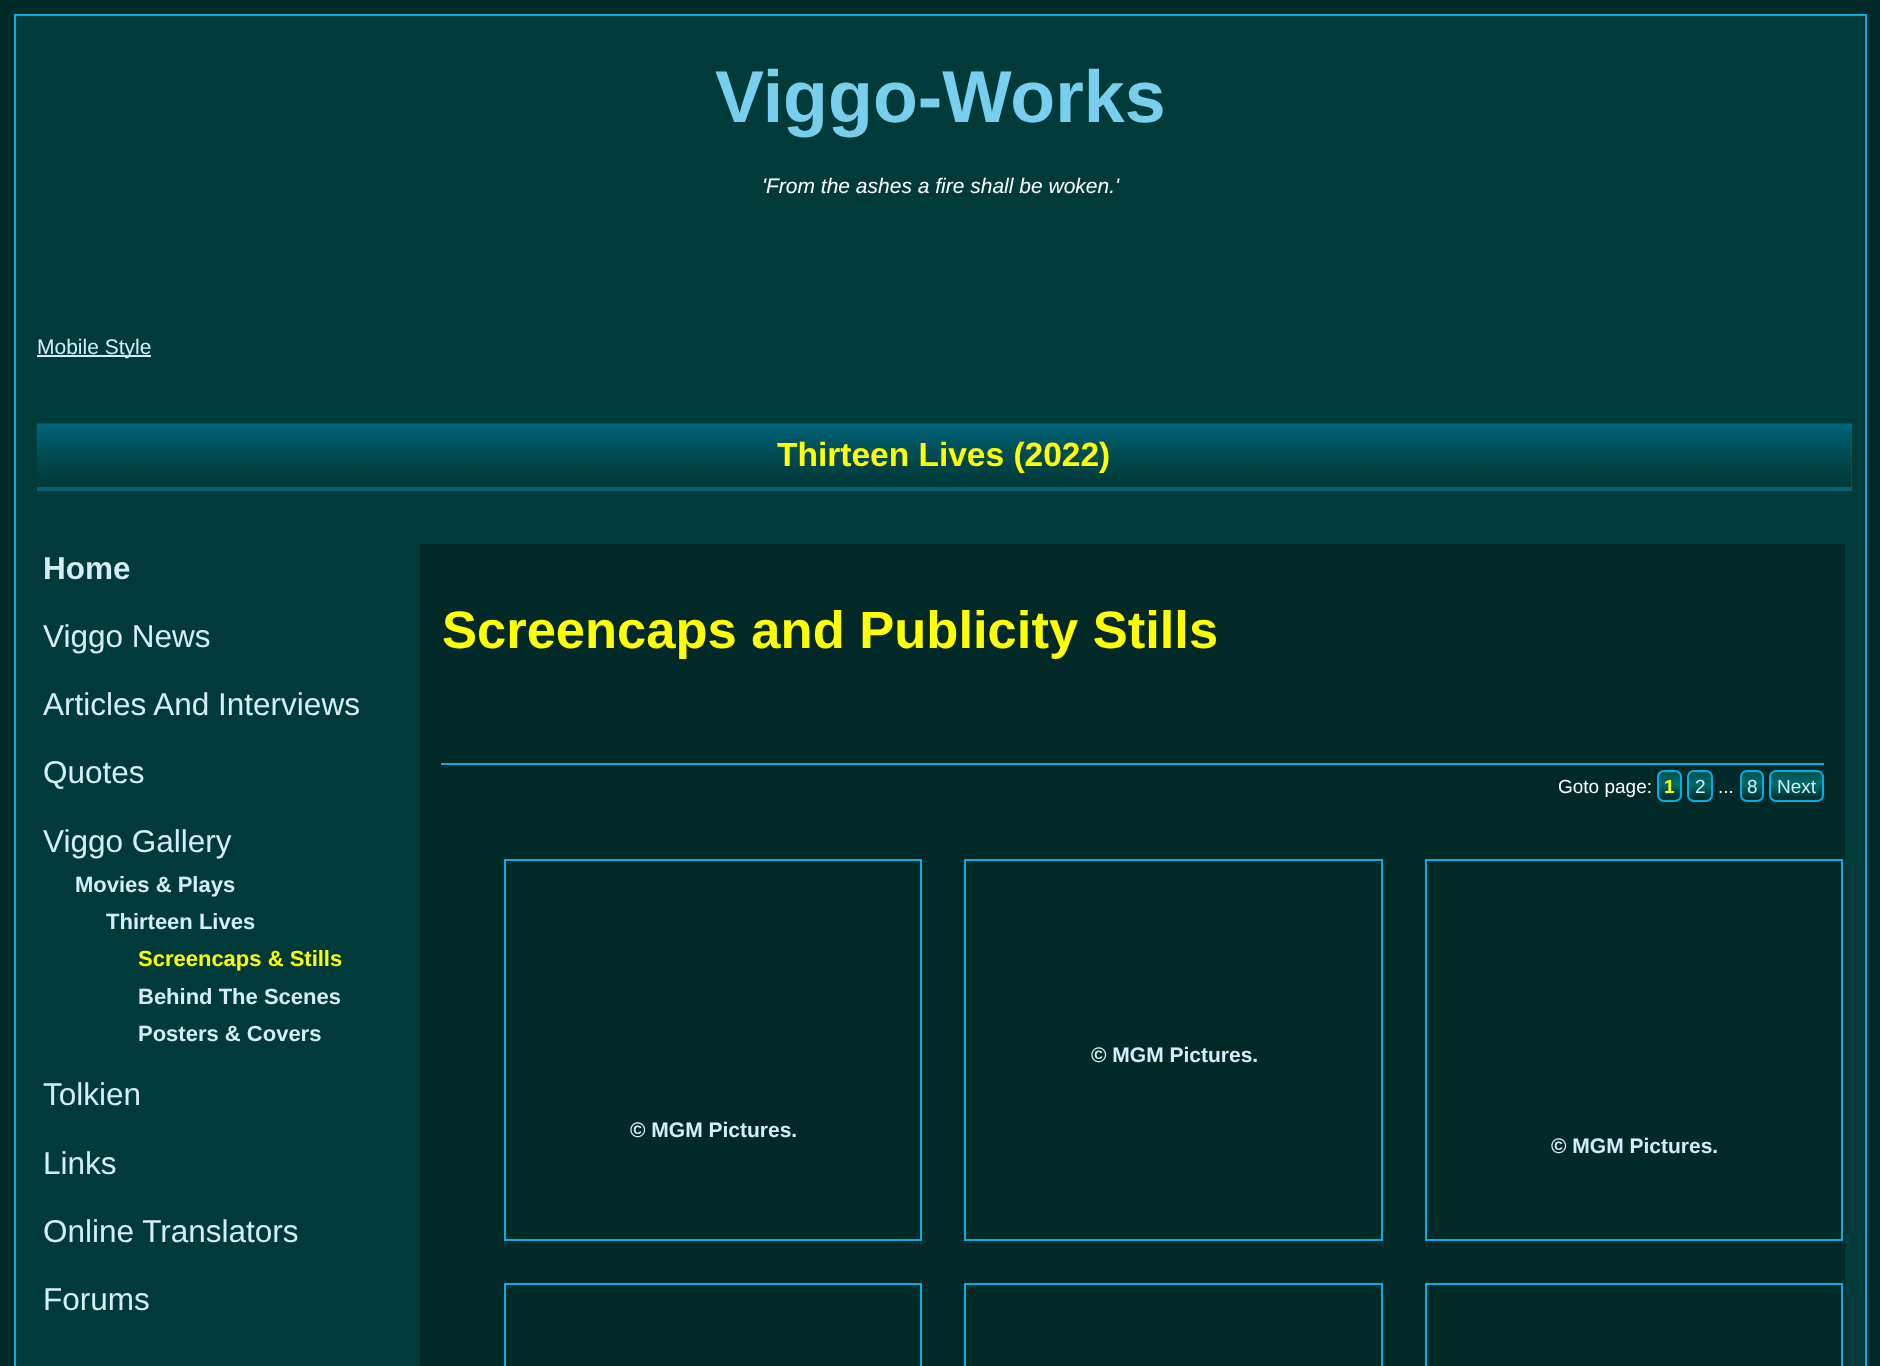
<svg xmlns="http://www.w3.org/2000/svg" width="1880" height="1366">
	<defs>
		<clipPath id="clip1"><rect x="1657" y="770" width="25" height="32" rx="7" /></clipPath>
		<linearGradient id="g1" gradientUnits="userSpaceOnUse" x1="1670" y1="772" x2="1670" y2="800"><stop offset="0" stop-color="#005451" /><stop offset="0.44" stop-color="#006A66" /><stop offset="1" stop-color="#002927" /></linearGradient>
		<clipPath id="clip2"><rect x="1687" y="770" width="26" height="32" rx="7" /></clipPath>
		<linearGradient id="g2" gradientUnits="userSpaceOnUse" x1="1700" y1="772" x2="1700" y2="800"><stop offset="0" stop-color="#005451" /><stop offset="0.44" stop-color="#006A66" /><stop offset="1" stop-color="#002927" /></linearGradient>
		<clipPath id="clip3"><rect x="1740" y="770" width="24" height="32" rx="7" /></clipPath>
		<linearGradient id="g3" gradientUnits="userSpaceOnUse" x1="1752" y1="772" x2="1752" y2="800"><stop offset="0" stop-color="#005451" /><stop offset="0.44" stop-color="#006A66" /><stop offset="1" stop-color="#002927" /></linearGradient>
		<clipPath id="clip4"><rect x="1769" y="770" width="55" height="32" rx="7" /></clipPath>
		<linearGradient id="g4" gradientUnits="userSpaceOnUse" x1="1796" y1="772" x2="1796" y2="800"><stop offset="0" stop-color="#005451" /><stop offset="0.44" stop-color="#006A66" /><stop offset="1" stop-color="#002927" /></linearGradient>
	</defs>
	<rect width="100%" height="100%" fill="#002927" />
	<rect x="15" y="15" width="1851" height="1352" fill="#003B39" stroke="#00AEED" stroke-width="2" />
	<text x="715" y="122" font-family="Liberation Sans" font-size="73.5" font-weight="700" fill="#77CEED">Viggo-Works</text>
	<text x="762" y="193" font-family="Liberation Sans" font-size="21" font-style="italic" fill="#FFFFFF">'From the ashes a fire shall be woken.'</text>
	<rect x="37" y="355" width="114" height="2" fill="#D4ECFB" />
	<text x="37" y="354" font-family="Liberation Sans" font-size="21" fill="#D4ECFB">Mobile Style</text>
	<rect x="1851" y="424" width="1" height="63" fill="#006378" />
	<image x="36" y="423" width="1816" height="64" href="assets/img1.png" />
	<rect x="37" y="487" width="1815" height="4" fill="#006378" />
	<text x="777" y="466" font-family="Liberation Sans" font-size="33.5" font-weight="700" fill="#FFFF00">Thirteen Lives (2022)</text>
	<text x="43" y="579" font-family="Liberation Sans" font-size="31.5" font-weight="700" fill="#D4ECFB">Home</text>
	<g font-family="Liberation Sans" font-size="31.5" fill="#D4ECFB">
		<text x="43" y="647">Viggo News</text>
		<text x="43" y="715">Articles And Interviews</text>
		<text x="43" y="783">Quotes</text>
		<text x="43" y="852">Viggo Gallery</text>
	</g>
	<g font-family="Liberation Sans" font-size="22" font-weight="700" fill="#D4ECFB">
		<text x="75" y="892">Movies &amp; Plays</text>
		<text x="106" y="929">Thirteen Lives</text>
	</g>
	<text x="138" y="966" font-family="Liberation Sans" font-size="22" font-weight="700" fill="#FFFF00">Screencaps &amp; Stills</text>
	<g font-family="Liberation Sans" font-size="22" font-weight="700" fill="#D4ECFB">
		<text x="138" y="1004">Behind The Scenes</text>
		<text x="138" y="1041">Posters &amp; Covers</text>
	</g>
	<g font-family="Liberation Sans" font-size="31.5" fill="#D4ECFB">
		<text x="43" y="1105">Tolkien</text>
		<text x="43" y="1174">Links</text>
		<text x="43" y="1242">Online Translators</text>
		<text x="43" y="1310">Forums</text>
	</g>
	<rect x="420" y="544" width="1425" height="822" fill="#002927" />
	<text x="442" y="648" font-family="Liberation Sans" font-size="52.5" font-weight="700" fill="#FFFF00">Screencaps and Publicity Stills</text>
	<rect x="441" y="763" width="1383" height="2" fill="#00AEED" />
	<text x="1558" y="793" font-family="Liberation Sans" font-size="19" fill="#FFFFFF">Goto page:</text>
	<g clip-path="url(#clip1)">
		<rect x="1657" y="772" width="25" height="28" fill="url(#g1)" />
	</g>
	<rect x="1658" y="771" width="23" height="30" rx="6" fill="none" stroke="#00AEED" stroke-width="2" />
	<text x="1664" y="793" font-family="Liberation Sans" font-size="19" font-weight="700" fill="#FFFF00">1</text>
	<g clip-path="url(#clip2)">
		<rect x="1687" y="772" width="26" height="28" fill="url(#g2)" />
	</g>
	<rect x="1688" y="771" width="24" height="30" rx="6" fill="none" stroke="#00AEED" stroke-width="2" />
	<text x="1695" y="793" font-family="Liberation Sans" font-size="19" fill="#D4ECFB">2</text>
	<text x="1718" y="793" font-family="Liberation Sans" font-size="19" fill="#FFFFFF">...</text>
	<g clip-path="url(#clip3)">
		<rect x="1740" y="772" width="24" height="28" fill="url(#g3)" />
	</g>
	<rect x="1741" y="771" width="22" height="30" rx="6" fill="none" stroke="#00AEED" stroke-width="2" />
	<text x="1747" y="793" font-family="Liberation Sans" font-size="19" fill="#D4ECFB">8</text>
	<g clip-path="url(#clip4)">
		<rect x="1769" y="772" width="55" height="28" fill="url(#g4)" />
	</g>
	<rect x="1770" y="771" width="53" height="30" rx="6" fill="none" stroke="#00AEED" stroke-width="2" />
	<text x="1777" y="793" font-family="Liberation Sans" font-size="19" fill="#D4ECFB">Next</text>
	<rect x="965" y="860" width="417" height="380" fill="none" stroke="#00AEED" stroke-width="2" />
	<text x="1091" y="1062" font-family="Liberation Sans" font-size="21" font-weight="700" fill="#D4ECFB">© MGM Pictures.</text>
	<rect x="505" y="860" width="416" height="380" fill="none" stroke="#00AEED" stroke-width="2" />
	<text x="630" y="1137" font-family="Liberation Sans" font-size="21" font-weight="700" fill="#D4ECFB">© MGM Pictures.</text>
	<rect x="1426" y="860" width="416" height="380" fill="none" stroke="#00AEED" stroke-width="2" />
	<text x="1551" y="1153" font-family="Liberation Sans" font-size="21" font-weight="700" fill="#D4ECFB">© MGM Pictures.</text>
	<rect x="505" y="1284" width="416" height="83" fill="none" stroke="#00AEED" stroke-width="2" />
	<rect x="965" y="1284" width="417" height="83" fill="none" stroke="#00AEED" stroke-width="2" />
	<rect x="1426" y="1284" width="416" height="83" fill="none" stroke="#00AEED" stroke-width="2" />
</svg>
